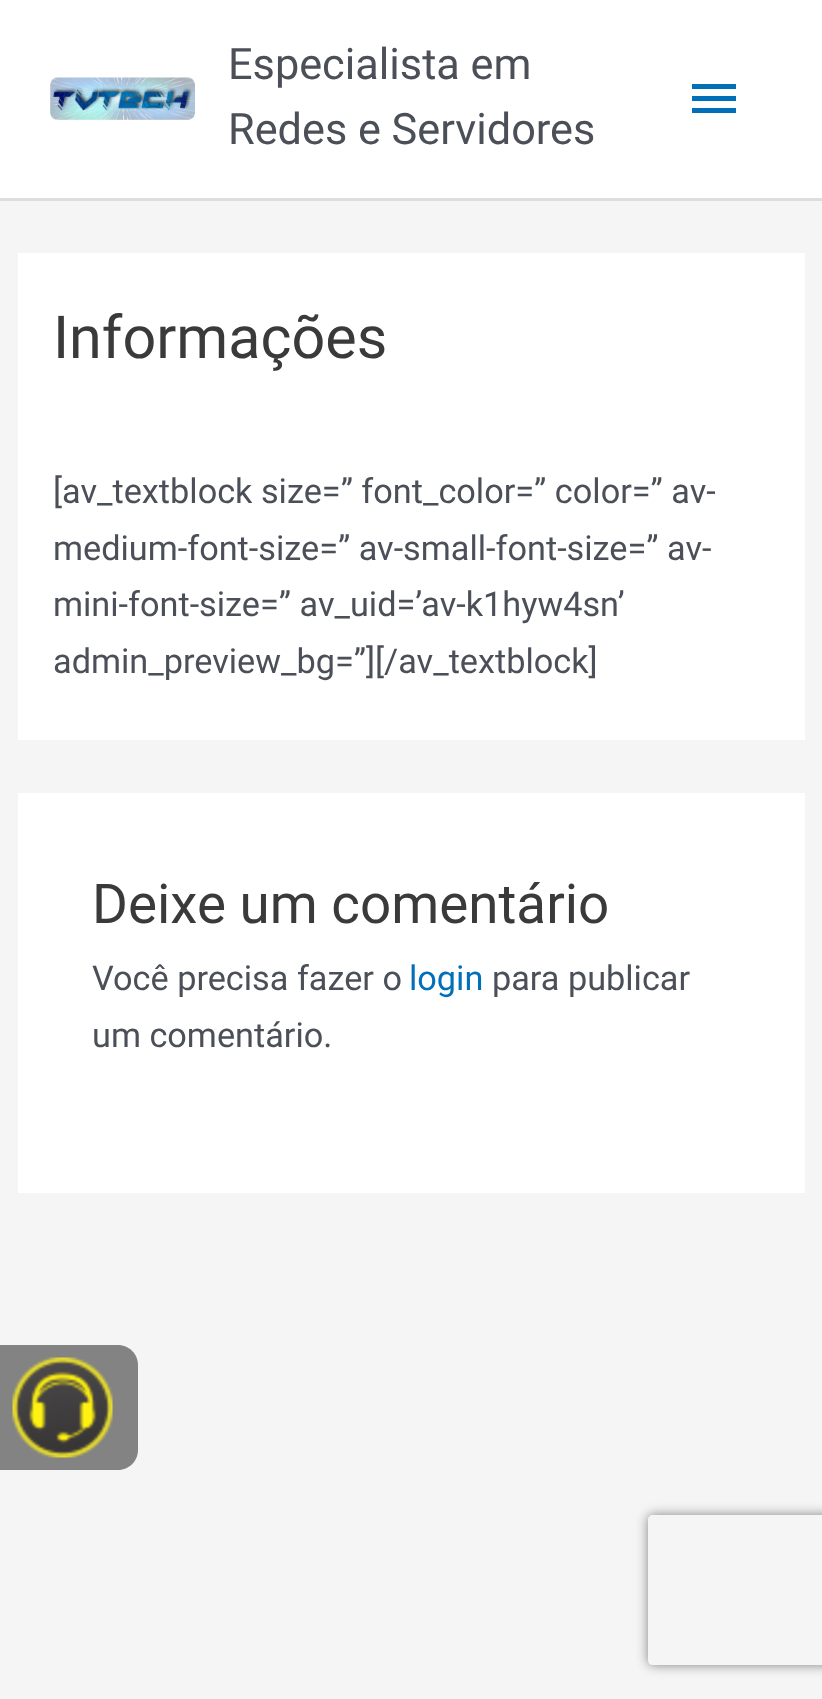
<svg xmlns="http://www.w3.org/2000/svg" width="822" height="1699">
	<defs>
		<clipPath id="clip1"><path d="M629 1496H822V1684H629ZM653 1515H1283C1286 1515 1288 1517 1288 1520V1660C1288 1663 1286 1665 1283 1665H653C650 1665 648 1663 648 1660V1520C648 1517 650 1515 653 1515Z" clip-rule="evenodd" /></clipPath>
	</defs>
	<rect width="100%" height="100%" fill="#F5F5F5" />
	<rect x="0" y="0" width="822" height="198" fill="#FFFFFF" />
	<rect x="0" y="198" width="822" height="3" fill="#DDDDDD" />
	<image x="50" y="77" width="145" height="43" href="assets/img1.png" />
	<g font-family="Roboto" font-size="43.25" fill="#4B4F58">
		<text x="228" y="79">Especialista em</text>
		<text x="228" y="144">Redes e Servidores</text>
	</g>
	<path d="M692 84H736V89H692ZM692 101V96H736V101ZM692 113V108H736V113Z" fill="#0170B9" />
	<rect x="18" y="253" width="787" height="487" fill="#FFFFFF" />
	<text x="53" y="358" font-family="Roboto" font-size="59.25" fill="#3A3A3A">Informações</text>
	<g font-family="Roboto" font-size="34.25" fill="#4B4F58">
		<text x="53" y="503">[av_textblock size=” font_color=” color=” av-</text>
		<text x="53" y="560">medium-font-size=” av-small-font-size=” av-</text>
		<text x="53" y="616">mini-font-size=” av_uid=’av-k1hyw4sn’</text>
		<text x="53" y="673">admin_preview_bg=”][/av_textblock]</text>
	</g>
	<rect x="18" y="793" width="787" height="400" fill="#FFFFFF" />
	<text x="92" y="923" font-family="Roboto" font-size="54.75" fill="#3A3A3A">Deixe um comentário</text>
	<text x="92" y="990" font-family="Roboto" font-size="34.25" fill="#4B4F58">Você precisa fazer o</text>
	<text x="409" y="990" font-family="Roboto" font-size="34.25" fill="#0170B9">login</text>
	<g font-family="Roboto" font-size="34.25" fill="#4B4F58">
		<text x="492" y="990">para publicar</text>
		<text x="92" y="1047">um comentário.</text>
	</g>
	<path d="M-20 1345H118C129 1345 138 1354 138 1365V1450C138 1461 129 1470 118 1470H-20Z" fill="#848383" />
	<image x="12" y="1357" width="101" height="101" href="assets/img2.png" />
	<g clip-path="url(#clip1)">
		<rect x="648" y="1515" width="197" height="150" rx="5" fill="#808080" filter="blur(6px)" />
	</g>
</svg>
